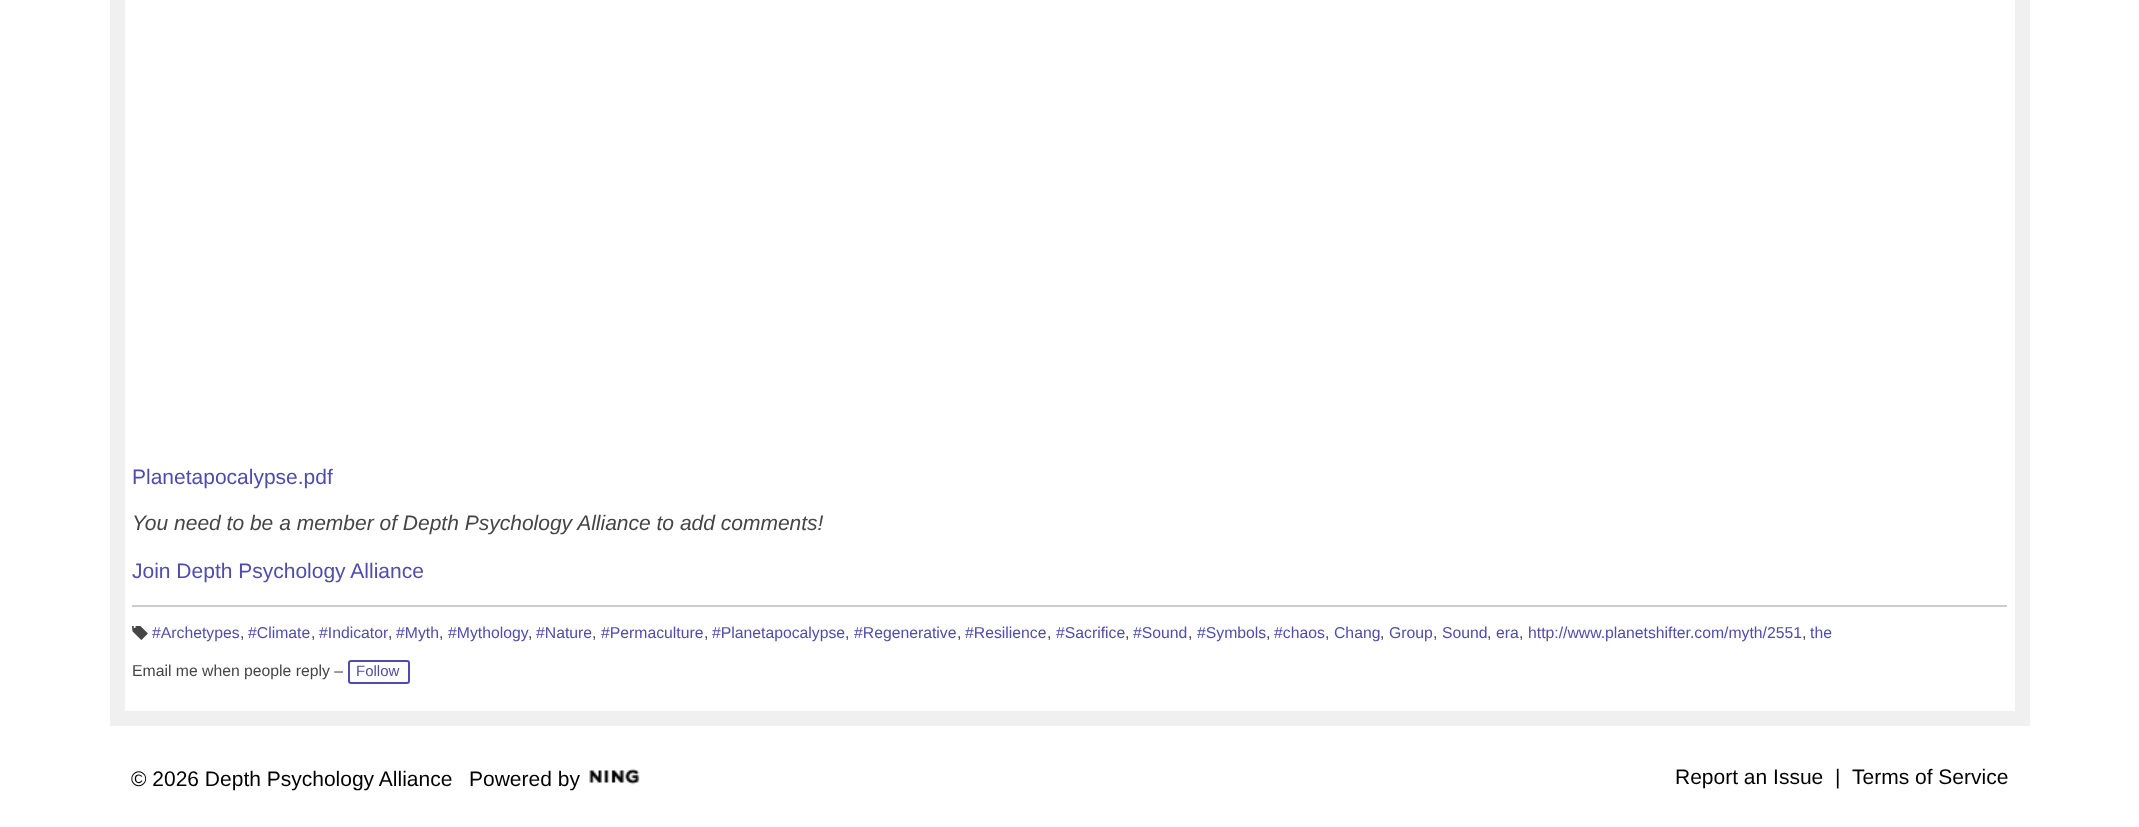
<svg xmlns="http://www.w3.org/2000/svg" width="2139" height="827">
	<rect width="100%" height="100%" fill="#FFFFFF" />
	<rect x="110" y="0" width="1920" height="726" fill="#F0F0F0" />
	<rect x="125" y="0" width="1890" height="711" fill="#FFFFFF" />
	<text x="132" y="484" font-family="Liberation Sans" font-size="21" fill="#4F4CAD">Planetapocalypse.pdf</text>
	<text x="132" y="530" font-family="Liberation Sans" font-size="21" font-style="italic" fill="#454545">You need to be a member of Depth Psychology Alliance to add comments!</text>
	<text x="132" y="578" font-family="Liberation Sans" font-size="21" fill="#4F4CAD">Join Depth Psychology Alliance</text>
	<rect x="132" y="605" width="1875" height="2" fill="#CCCCCC" />
	<image x="132" y="626" width="16" height="14" href="assets/img1.png" />
	<text x="152" y="638" font-family="Liberation Sans" font-size="15.75" fill="#4F4CAD">#Archetypes</text>
	<text x="240" y="638" font-family="Liberation Sans" font-size="15.75" fill="#454545">,</text>
	<text x="248" y="638" font-family="Liberation Sans" font-size="15.75" fill="#4F4CAD">#Climate</text>
	<text x="311" y="638" font-family="Liberation Sans" font-size="15.75" fill="#454545">,</text>
	<text x="319" y="638" font-family="Liberation Sans" font-size="15.75" fill="#4F4CAD">#Indicator</text>
	<text x="388" y="638" font-family="Liberation Sans" font-size="15.75" fill="#454545">,</text>
	<text x="396" y="638" font-family="Liberation Sans" font-size="15.75" fill="#4F4CAD">#Myth</text>
	<text x="439" y="638" font-family="Liberation Sans" font-size="15.75" fill="#454545">,</text>
	<text x="448" y="638" font-family="Liberation Sans" font-size="15.75" fill="#4F4CAD">#Mythology</text>
	<text x="528" y="638" font-family="Liberation Sans" font-size="15.75" fill="#454545">,</text>
	<text x="536" y="638" font-family="Liberation Sans" font-size="15.75" fill="#4F4CAD">#Nature</text>
	<text x="592" y="638" font-family="Liberation Sans" font-size="15.75" fill="#454545">,</text>
	<text x="601" y="638" font-family="Liberation Sans" font-size="15.75" fill="#4F4CAD">#Permaculture</text>
	<text x="704" y="638" font-family="Liberation Sans" font-size="15.75" fill="#454545">,</text>
	<text x="712" y="638" font-family="Liberation Sans" font-size="15.75" fill="#4F4CAD">#Planetapocalypse</text>
	<text x="845" y="638" font-family="Liberation Sans" font-size="15.75" fill="#454545">,</text>
	<text x="854" y="638" font-family="Liberation Sans" font-size="15.75" fill="#4F4CAD">#Regenerative</text>
	<text x="957" y="638" font-family="Liberation Sans" font-size="15.75" fill="#454545">,</text>
	<text x="965" y="638" font-family="Liberation Sans" font-size="15.75" fill="#4F4CAD">#Resilience</text>
	<text x="1047" y="638" font-family="Liberation Sans" font-size="15.75" fill="#454545">,</text>
	<text x="1056" y="638" font-family="Liberation Sans" font-size="15.75" fill="#4F4CAD">#Sacrifice</text>
	<text x="1125" y="638" font-family="Liberation Sans" font-size="15.75" fill="#454545">,</text>
	<text x="1133" y="638" font-family="Liberation Sans" font-size="15.75" fill="#4F4CAD">#Sound</text>
	<text x="1188" y="638" font-family="Liberation Sans" font-size="15.75" fill="#454545">,</text>
	<text x="1197" y="638" font-family="Liberation Sans" font-size="15.75" fill="#4F4CAD">#Symbols</text>
	<text x="1266" y="638" font-family="Liberation Sans" font-size="15.75" fill="#454545">,</text>
	<text x="1274" y="638" font-family="Liberation Sans" font-size="15.75" fill="#4F4CAD">#chaos</text>
	<text x="1325" y="638" font-family="Liberation Sans" font-size="15.75" fill="#454545">,</text>
	<text x="1334" y="638" font-family="Liberation Sans" font-size="15.75" fill="#4F4CAD">Chang</text>
	<text x="1380" y="638" font-family="Liberation Sans" font-size="15.75" fill="#454545">,</text>
	<text x="1389" y="638" font-family="Liberation Sans" font-size="15.75" fill="#4F4CAD">Group</text>
	<text x="1433" y="638" font-family="Liberation Sans" font-size="15.75" fill="#454545">,</text>
	<text x="1442" y="638" font-family="Liberation Sans" font-size="15.75" fill="#4F4CAD">Sound</text>
	<text x="1487" y="638" font-family="Liberation Sans" font-size="15.75" fill="#454545">,</text>
	<text x="1496" y="638" font-family="Liberation Sans" font-size="15.75" fill="#4F4CAD">era</text>
	<text x="1519" y="638" font-family="Liberation Sans" font-size="15.75" fill="#454545">,</text>
	<text x="1528" y="638" font-family="Liberation Sans" font-size="15.75" fill="#4F4CAD">http://www.planetshifter.com/myth/2551</text>
	<text x="1802" y="638" font-family="Liberation Sans" font-size="15.75" fill="#454545">,</text>
	<text x="1810" y="638" font-family="Liberation Sans" font-size="15.75" fill="#4F4CAD">the</text>
	<text x="132" y="676" font-family="Liberation Sans" font-size="15.75" fill="#454545">Email me when people reply –</text>
	<rect x="349" y="661" width="60" height="22" rx="2" fill="none" stroke="#4F4CAD" stroke-width="2" />
	<text x="356" y="676" font-family="Liberation Sans" font-size="15" fill="#4F4CAD">Follow</text>
	<g font-family="Liberation Sans" font-size="21" fill="#000000">
		<text x="131" y="786">© 2026 Depth Psychology Alliance</text>
		<text x="469" y="786">Powered by</text>
	</g>
	<image x="589" y="768" width="51" height="17" href="assets/img2.png" />
	<g font-family="Liberation Sans" font-size="21" fill="#000000">
		<text x="1675" y="784">Report an Issue</text>
		<text x="1835" y="784">|</text>
		<text x="1852" y="784">Terms of Service</text>
	</g>
</svg>
